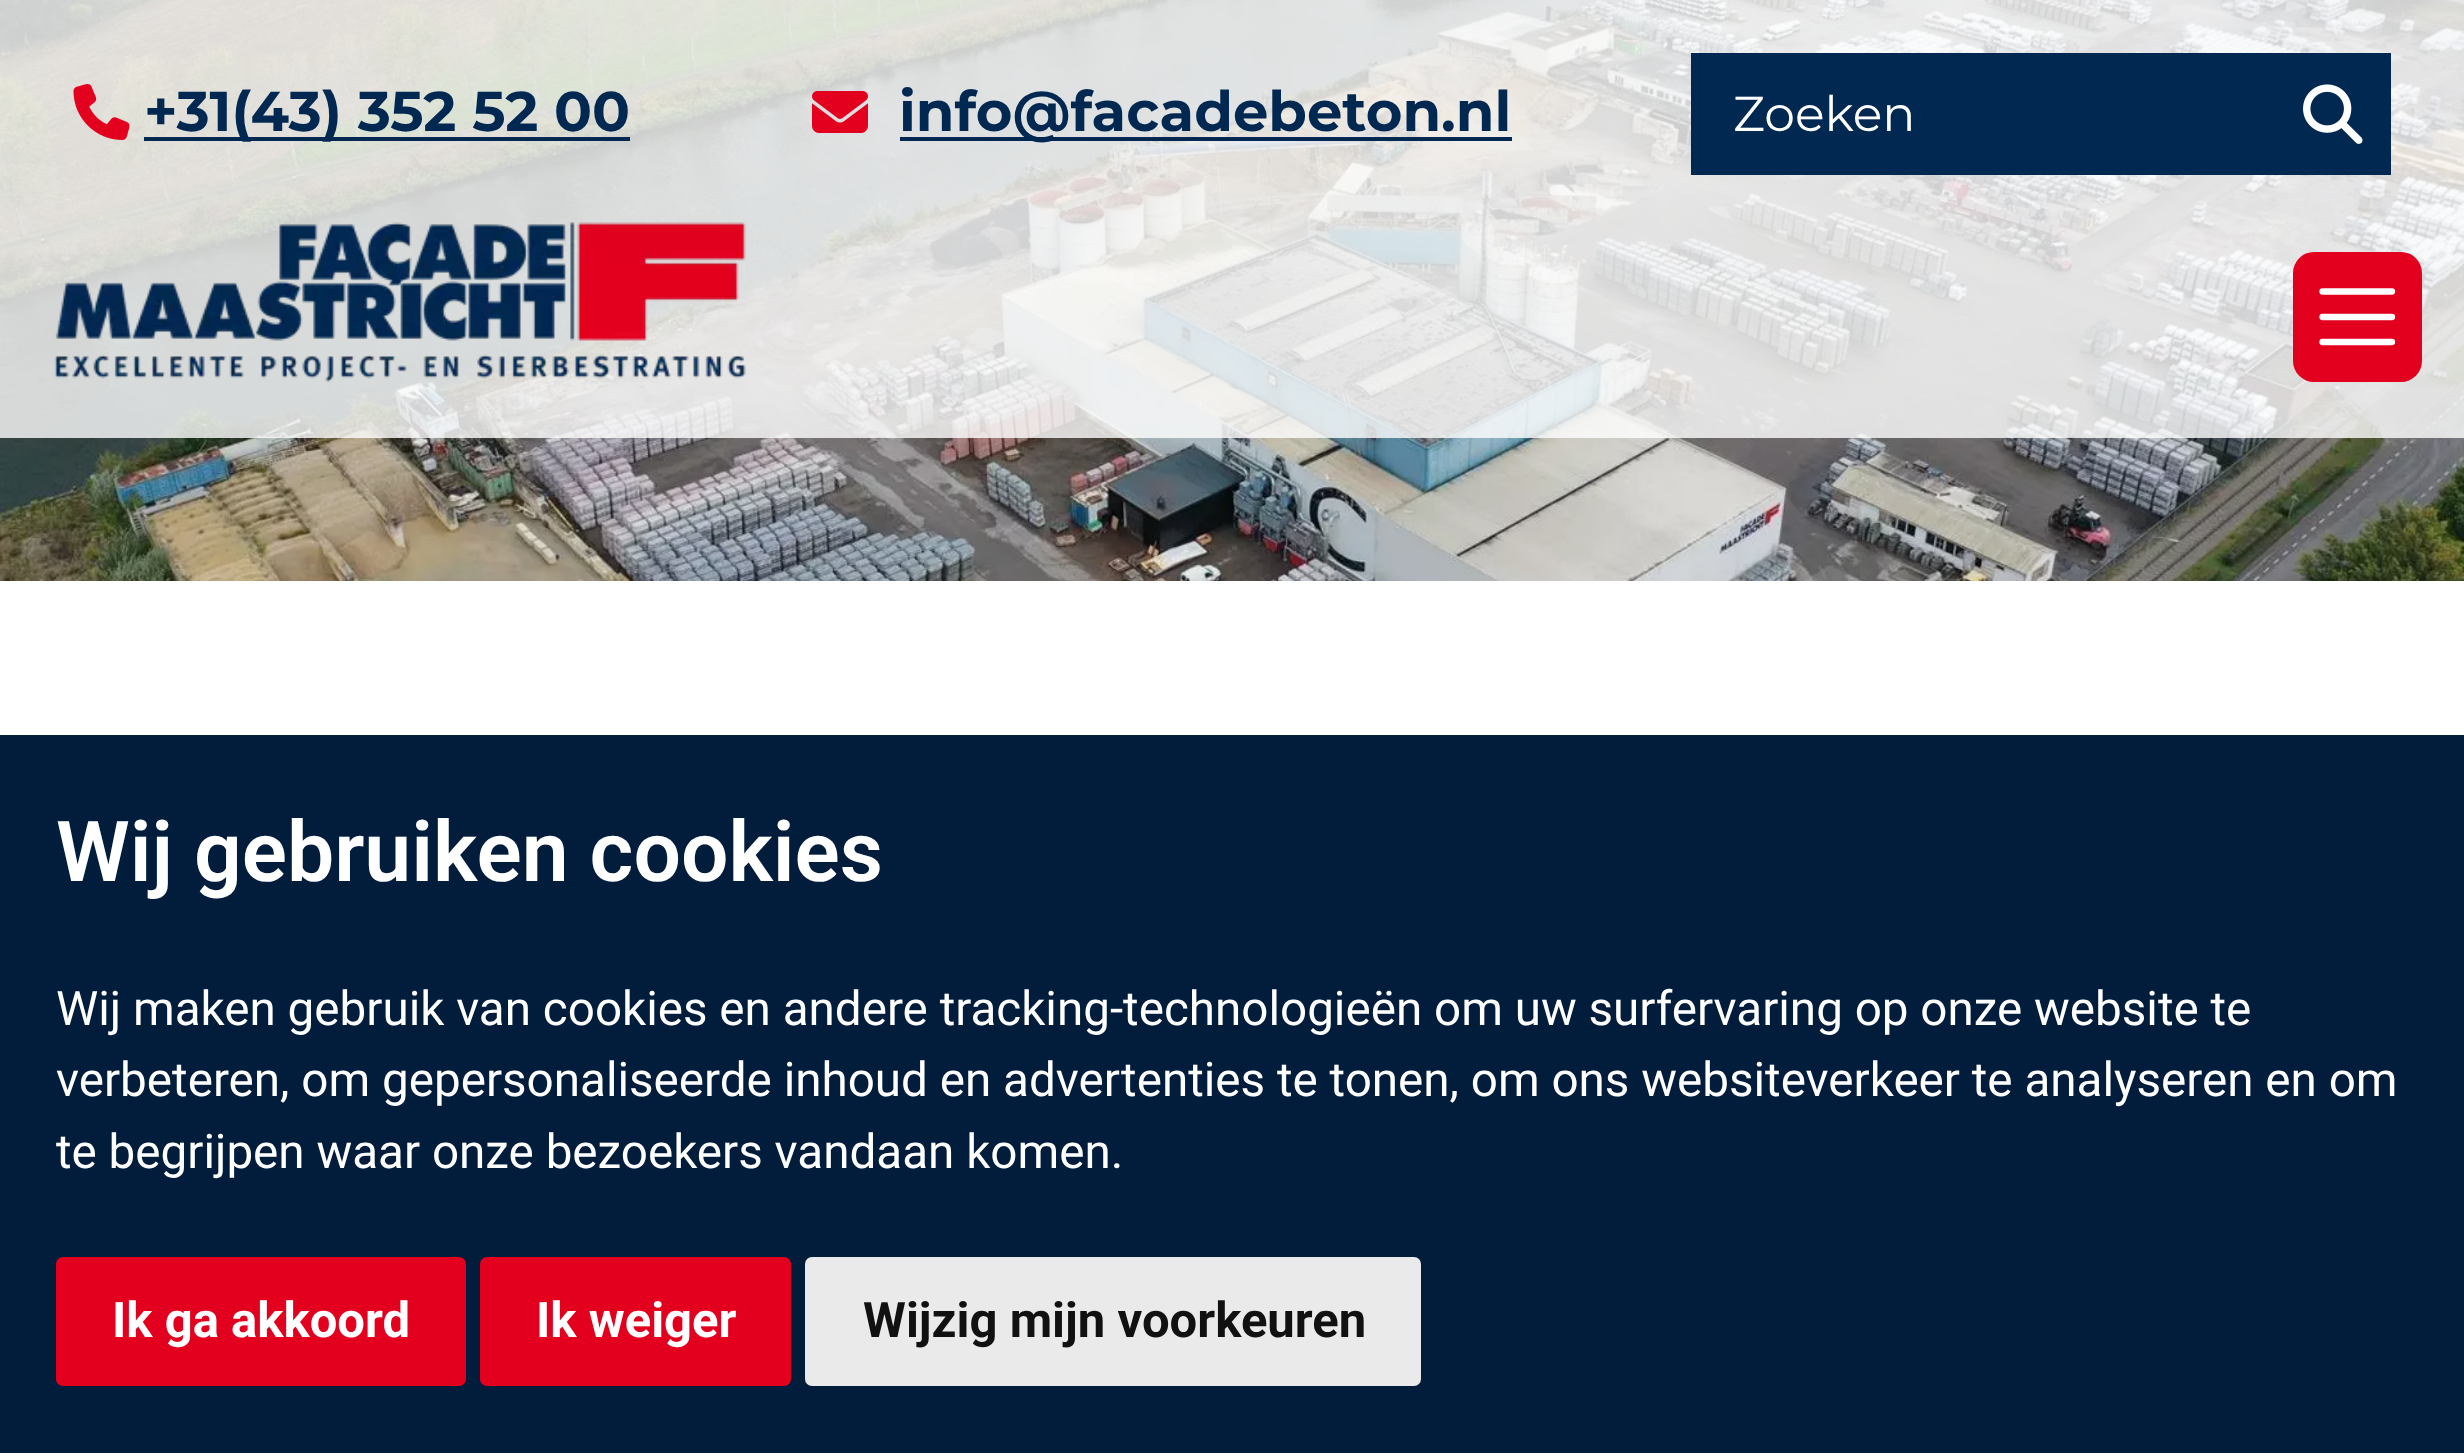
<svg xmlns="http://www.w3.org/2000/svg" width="2464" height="1453">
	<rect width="100%" height="100%" fill="#FFFFFF" />
	<image x="0" y="0" width="2464" height="581" href="assets/img1.png" />
	<rect x="0" y="0" width="2464" height="438" fill="#FFFFFF" fill-opacity="0.8" />
	<image x="73" y="84" width="57" height="56" href="assets/img2.png" />
	<rect x="144" y="137" width="486" height="4" fill="#012851" />
	<text x="144" y="131" font-family="Montserrat" font-size="56" font-weight="700" fill="#012851">+31(43) 352 52 00</text>
	<image x="812" y="91" width="56" height="42" href="assets/img3.png" />
	<rect x="900" y="137" width="612" height="4" fill="#012851" />
	<text x="899" y="131" font-family="Montserrat" font-size="56" font-weight="700" fill="#012851">info@facadebeton.nl</text>
	<rect x="1691" y="53" width="700" height="122" fill="#012851" />
	<text x="1733" y="131" font-family="Montserrat" font-size="49" fill="#FFFFFF">Zoeken</text>
	<image x="2303" y="84" width="60" height="60" href="assets/img4.png" />
	<image x="54" y="222" width="692" height="160" href="assets/img5.png" />
	<rect x="2293" y="252" width="129" height="130" rx="21" fill="#E3001F" />
	<path d="M2322.5 291.5H2392M2322.5 317H2392M2322.5 342H2392" fill="none" stroke="#FFFFFF" stroke-width="6.3" stroke-linecap="round" />
	<rect x="0" y="735" width="2464" height="718" fill="#011D3B" />
	<text x="56" y="881" font-family="Roboto" font-size="84" font-weight="600" fill="#FFFFFF">Wij gebruiken cookies</text>
	<g font-family="Roboto" font-size="47.6" fill="#FFFFFF">
		<text x="56" y="1025">Wij maken gebruik van cookies en andere tracking-technologieën om uw surfervaring op onze website te</text>
		<text x="56" y="1096">verbeteren, om gepersonaliseerde inhoud en advertenties te tonen, om ons websiteverkeer te analyseren en om</text>
		<text x="56" y="1168">te begrijpen waar onze bezoekers vandaan komen.</text>
	</g>
	<rect x="56" y="1257" width="410" height="129" rx="7" fill="#E3001F" />
	<text x="112" y="1337" font-family="Roboto" font-size="49" font-weight="700" fill="#FFFFFF">Ik ga akkoord</text>
	<rect x="480" y="1257" width="311" height="129" rx="7" fill="#E3001F" />
	<text x="536" y="1337" font-family="Roboto" font-size="49" font-weight="700" fill="#FFFFFF">Ik weiger</text>
	<rect x="805" y="1257" width="616" height="129" rx="7" fill="#EAEAEA" />
	<text x="863" y="1337" font-family="Roboto" font-size="49" font-weight="700" fill="#111111">Wijzig mijn voorkeuren</text>
</svg>
